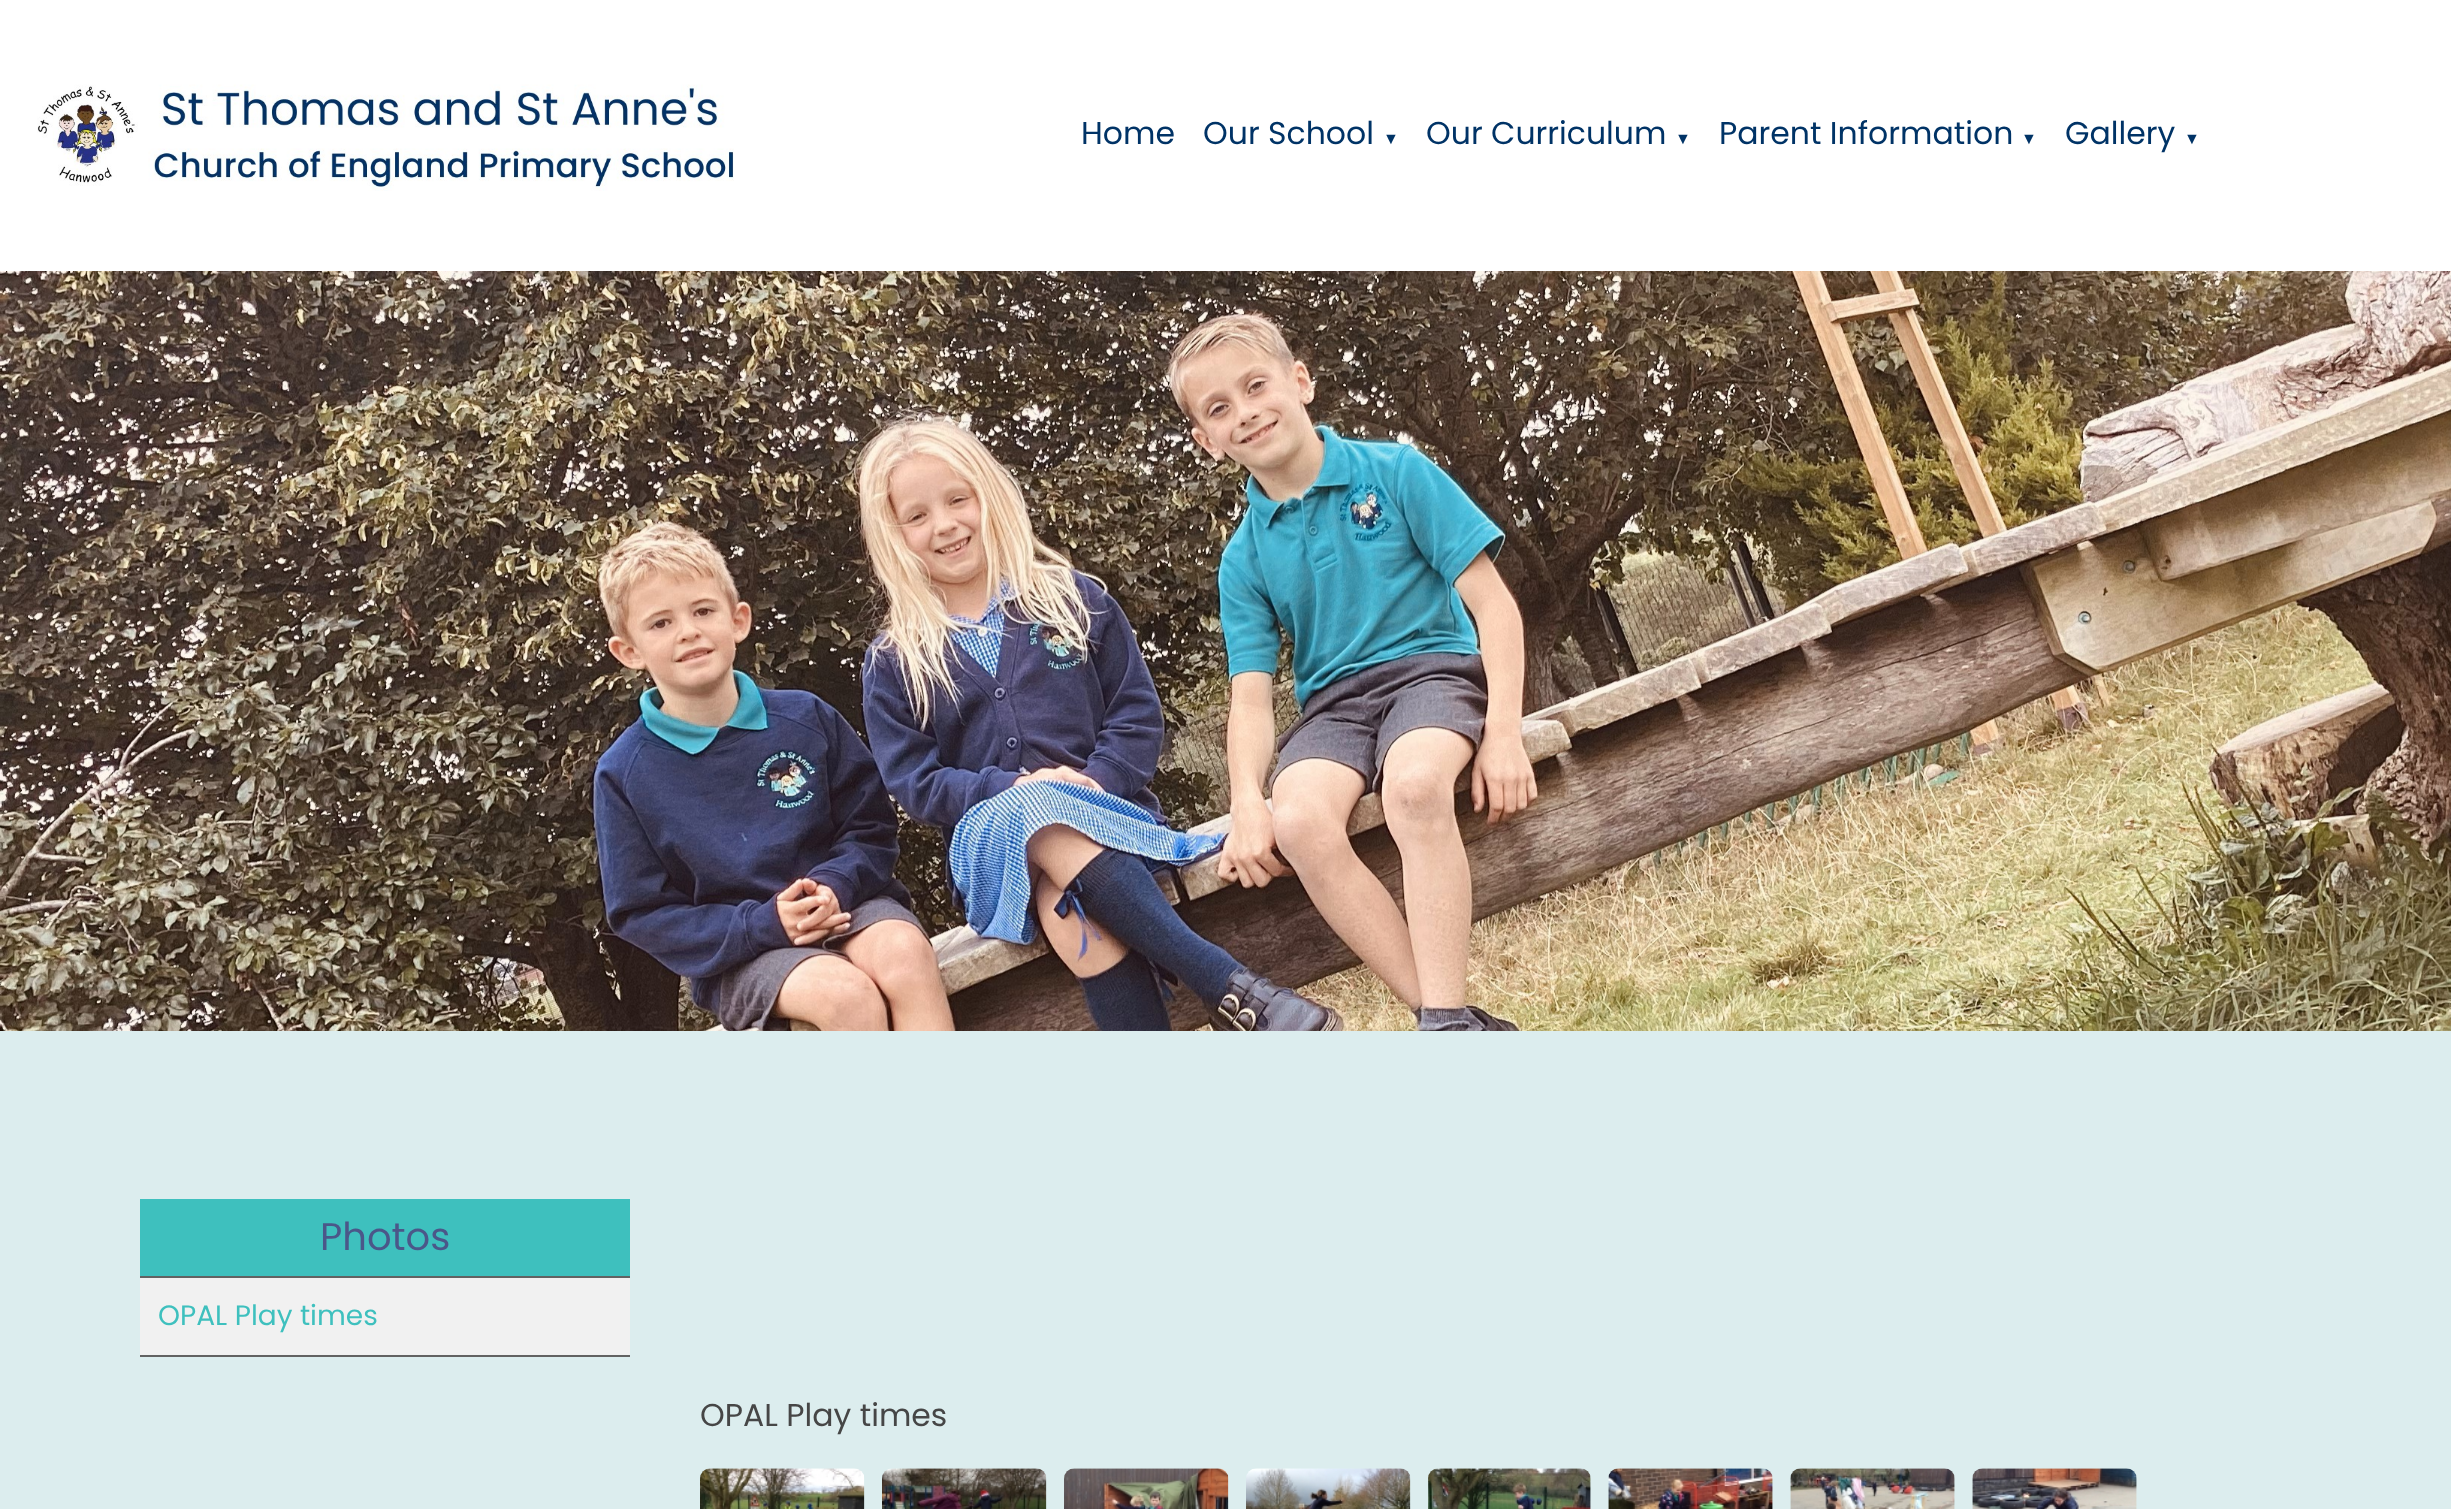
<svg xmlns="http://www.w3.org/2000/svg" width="2451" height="1509">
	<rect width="100%" height="100%" fill="#FFFFFF" />
	<image x="37" y="84" width="697" height="107" href="assets/img1.png" />
	<g font-family="Poppins" font-size="31.5" fill="#003366">
		<text x="1081" y="144">Home</text>
		<text x="1203" y="144">Our School</text>
	</g>
	<text x="1383" y="144" font-family="Liberation Serif" font-size="16" fill="#003366">▼</text>
	<text x="1426" y="144" font-family="Poppins" font-size="31.5" fill="#003366">Our Curriculum</text>
	<text x="1675" y="144" font-family="Liberation Serif" font-size="16" fill="#003366">▼</text>
	<text x="1719" y="144" font-family="Poppins" font-size="31.5" fill="#003366">Parent Information</text>
	<text x="2021" y="144" font-family="Liberation Serif" font-size="16" fill="#003366">▼</text>
	<text x="2065" y="144" font-family="Poppins" font-size="31.5" fill="#003366">Gallery</text>
	<text x="2184" y="144" font-family="Liberation Serif" font-size="16" fill="#003366">▼</text>
	<image x="0" y="271" width="2451" height="760" href="assets/img2.png" />
	<rect x="0" y="1031" width="2451" height="478" fill="#DCEDEE" />
	<rect x="140" y="1199" width="490" height="77" fill="#3EC0BE" />
	<rect x="140" y="1276" width="490" height="2" fill="#626262" />
	<text x="320" y="1250" font-family="Poppins" font-size="38.5" fill="#4B5789">Photos</text>
	<rect x="140" y="1278" width="490" height="77" fill="#F1F1F1" />
	<rect x="140" y="1355" width="490" height="2" fill="#626262" />
	<text x="158" y="1325" font-family="Poppins" font-size="28" fill="#3EC0BE">OPAL Play times</text>
	<text x="700" y="1426" font-family="Poppins" font-size="31.5" fill="#464646">OPAL Play times</text>
	<image x="700" y="1468" width="165" height="41" href="assets/img3.png" />
	<image x="882" y="1468" width="165" height="41" href="assets/img4.png" />
	<image x="1064" y="1468" width="165" height="41" href="assets/img5.png" />
	<image x="1246" y="1468" width="165" height="41" href="assets/img6.png" />
	<image x="1428" y="1468" width="163" height="41" href="assets/img7.png" />
	<image x="1608" y="1468" width="165" height="41" href="assets/img8.png" />
	<image x="1790" y="1468" width="165" height="41" href="assets/img9.png" />
	<image x="1972" y="1468" width="165" height="41" href="assets/img10.png" />
</svg>
